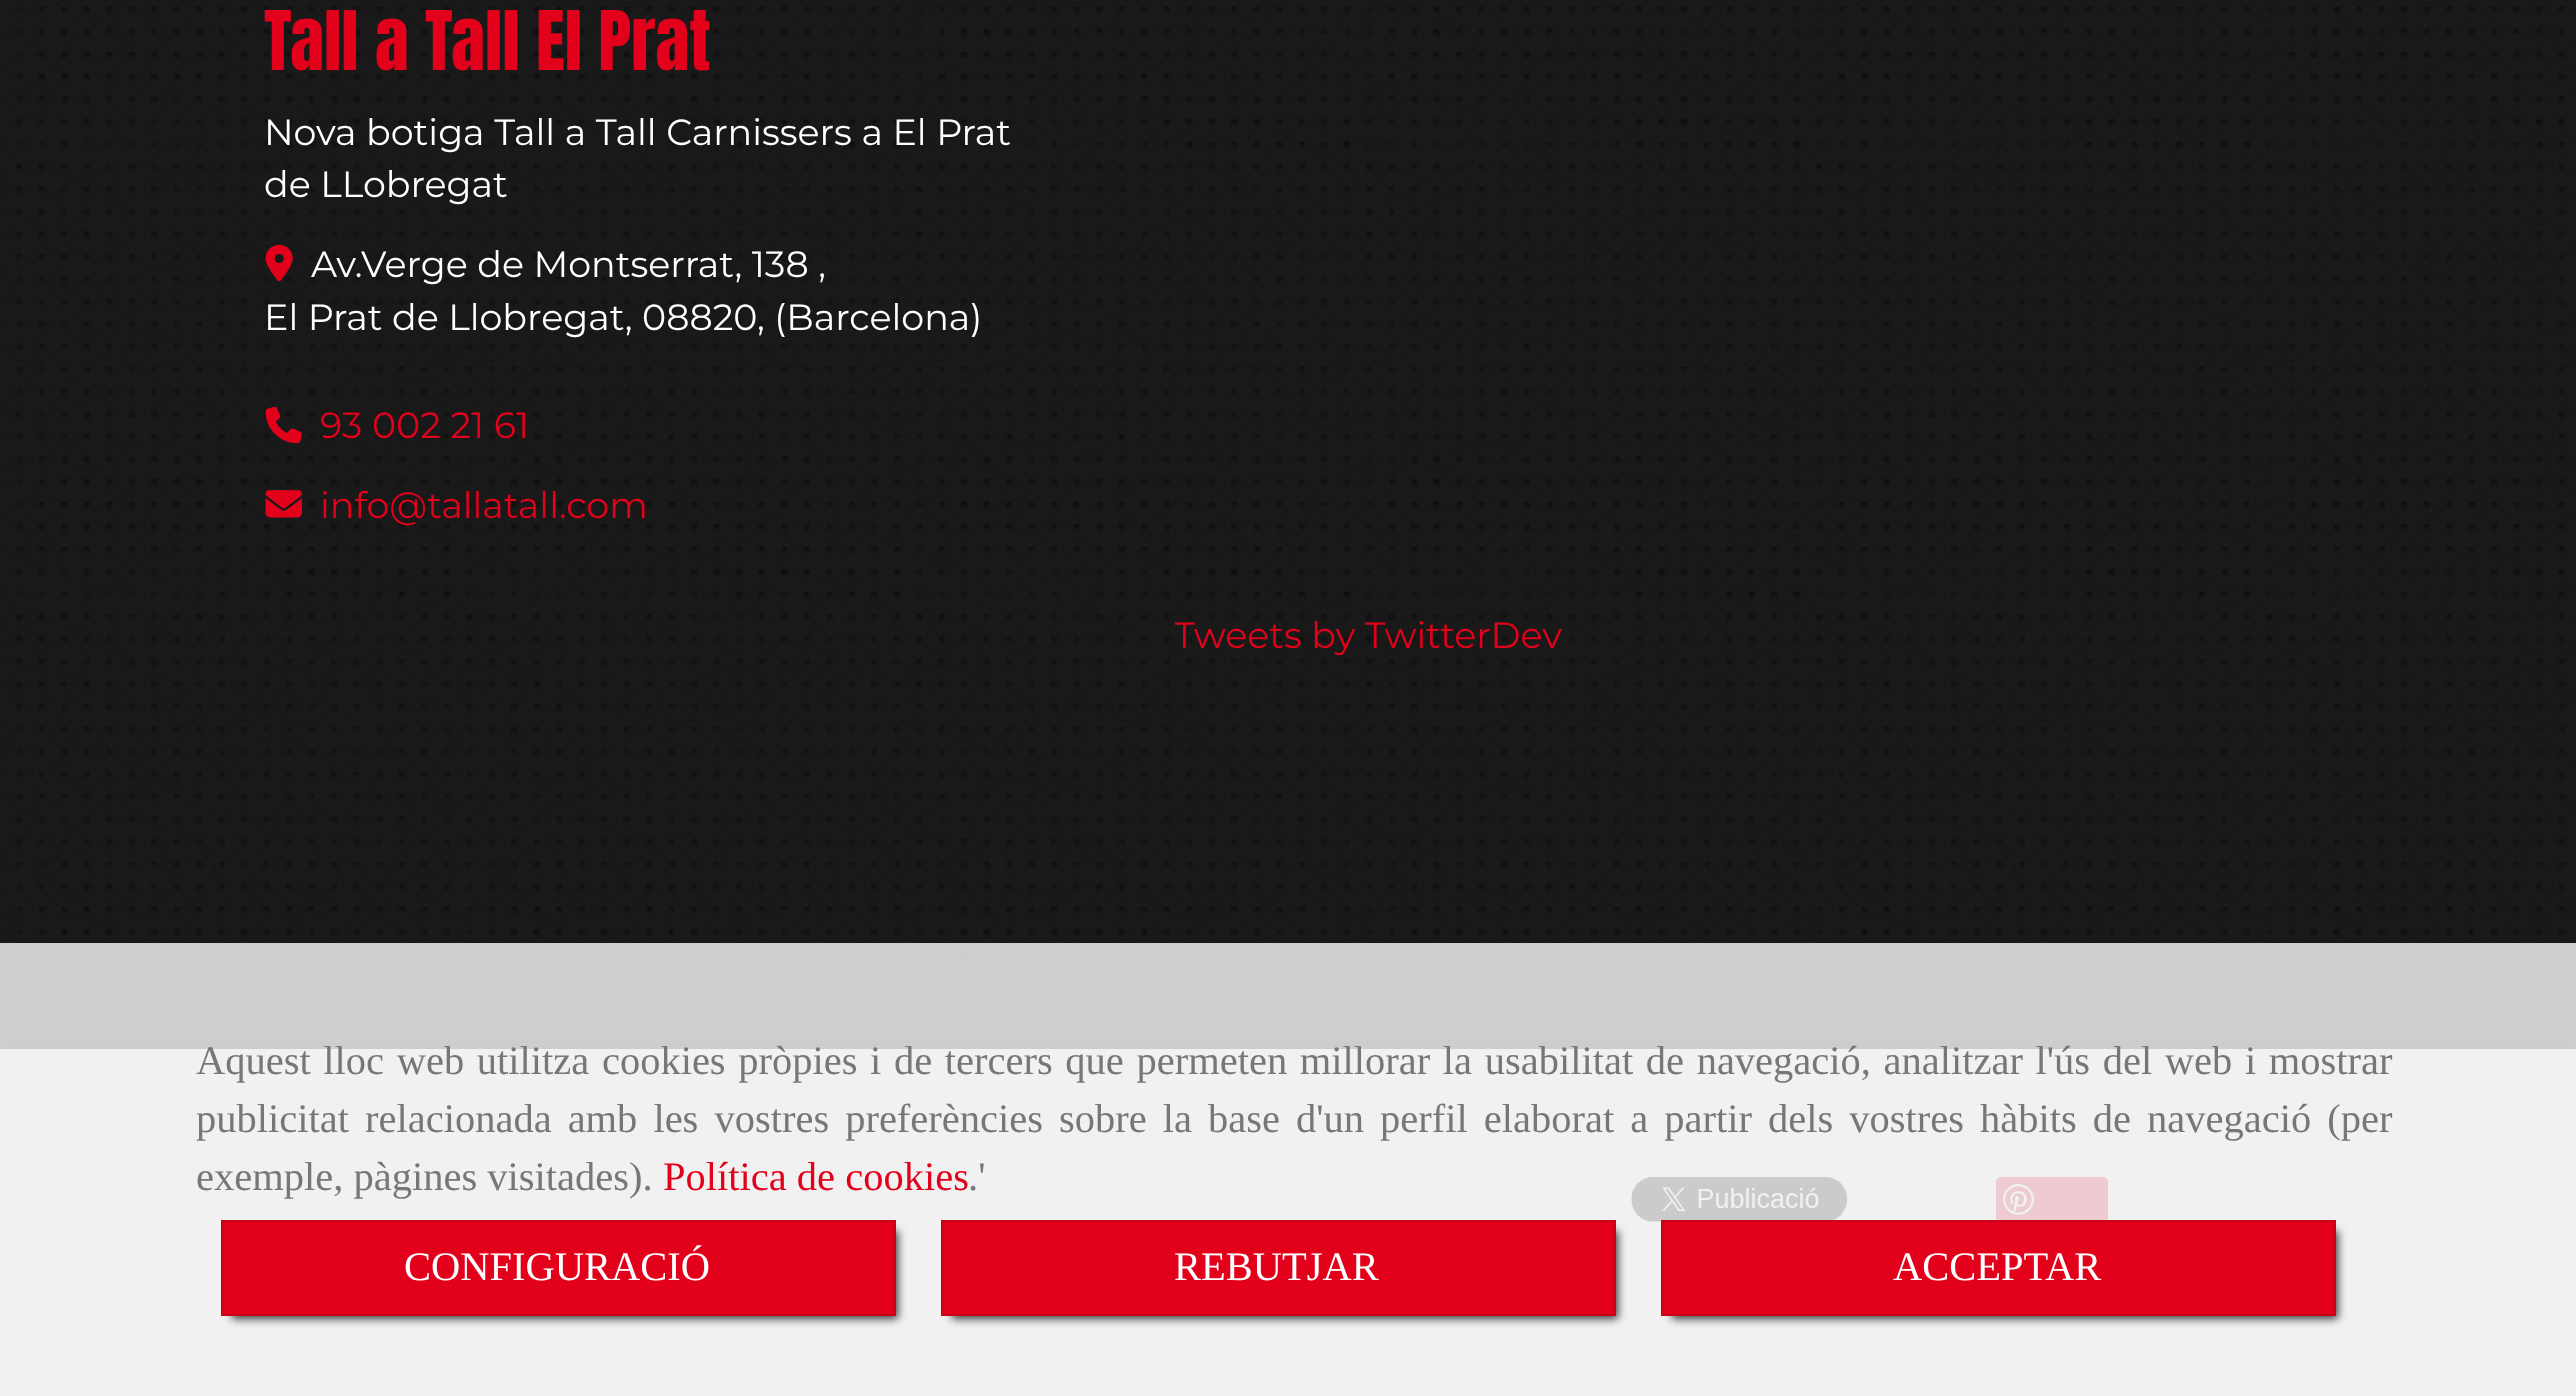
<svg xmlns="http://www.w3.org/2000/svg" width="2576" height="1396">
	<defs>
		<clipPath id="clip1"><rect x="1175" y="610" width="956" height="52" /></clipPath>
	</defs>
	<rect width="100%" height="100%" fill="#FFFFFF" />
	<image x="0" y="0" width="2576" height="1049" href="assets/img1.png" />
	<text x="264" y="70" font-family="Anton" font-size="69.75" fill="#E2001A">Tall a Tall El Prat</text>
	<g font-family="Montserrat" font-size="36.45" font-weight="100" fill="#FFFFFF">
		<text x="264" y="145">Nova botiga Tall a Tall Carnissers a El Prat</text>
		<text x="264" y="197">de LLobregat</text>
	</g>
	<image x="265" y="244" width="28" height="38" href="assets/img2.png" />
	<g font-family="Montserrat" font-size="36.45" font-weight="100" fill="#FFFFFF">
		<text x="311" y="277">Av.Verge de Montserrat, 138 ,</text>
		<text x="264" y="330">El Prat de Llobregat, 08820</text>
		<text x="757" y="330">, (Barcelona)</text>
	</g>
	<image x="265" y="406" width="37" height="38" href="assets/img3.png" />
	<text x="320" y="438" font-family="Montserrat" font-size="36.45" font-weight="100" fill="#E2001A">93 002 21 61</text>
	<image x="265" y="490" width="37" height="28" href="assets/img4.png" />
	<text x="320" y="518" font-family="Montserrat" font-size="36.45" font-weight="100" fill="#E2001A">info@tallatall.com</text>
	<g clip-path="url(#clip1)">
		<text x="1174" y="648" font-family="Montserrat" font-size="36.45" font-weight="100" fill="#E2001A">Tweets by TwitterDev</text>
	</g>
	<rect x="0" y="1040" width="2576" height="348" fill="#000000" fill-opacity="0.3" filter="blur(5.5px)" />
	<rect x="0" y="1049" width="2576" height="347" fill="#FFFFFF" />
	<image x="1631" y="1177" width="216" height="45" href="assets/img5.png" />
	<rect x="1996" y="1177" width="112" height="45" rx="5" fill="#E60023" />
	<image x="2003" y="1184" width="31" height="31" href="assets/img6.png" />
	<rect x="0" y="943" width="2576" height="453" fill="#EEEEEE" fill-opacity="0.85" />
	<g font-family="Liberation Serif" font-size="40.5" fill="#777777">
		<text x="196" y="1074" word-spacing="2.5">Aquest lloc web utilitza cookies pròpies i de tercers que permeten millorar la usabilitat de navegació, analitzar l'ús del web i mostrar</text>
		<text x="196" y="1132" word-spacing="5.9">publicitat relacionada amb les vostres preferències sobre la base d'un perfil elaborat a partir dels vostres hàbits de navegació (per</text>
		<text x="196" y="1190">exemple, pàgines visitades).</text>
	</g>
	<text x="663" y="1190" font-family="Liberation Serif" font-size="40.5" fill="#E2001A">Política de cookies</text>
	<text x="968" y="1190" font-family="Liberation Serif" font-size="40.5" fill="#777777">.'</text>
	<rect x="232" y="1231" width="666" height="88" fill="#000000" fill-opacity="0.75" filter="blur(4.5px)" />
	<rect x="222" y="1221" width="673" height="94" fill="#E2001A" stroke="#C90017" stroke-width="2" />
	<text x="404" y="1280" font-family="Liberation Serif" font-size="40.5" fill="#FFFFFF">CONFIGURACIÓ</text>
	<rect x="952" y="1231" width="666" height="88" fill="#000000" fill-opacity="0.75" filter="blur(4.5px)" />
	<rect x="942" y="1221" width="673" height="94" fill="#E2001A" stroke="#C90017" stroke-width="2" />
	<text x="1174" y="1280" font-family="Liberation Serif" font-size="40.5" fill="#FFFFFF">REBUTJAR</text>
	<rect x="1672" y="1231" width="666" height="88" fill="#000000" fill-opacity="0.75" filter="blur(4.5px)" />
	<rect x="1662" y="1221" width="673" height="94" fill="#E2001A" stroke="#C90017" stroke-width="2" />
	<text x="1893" y="1280" font-family="Liberation Serif" font-size="40.5" fill="#FFFFFF">ACCEPTAR</text>
</svg>
